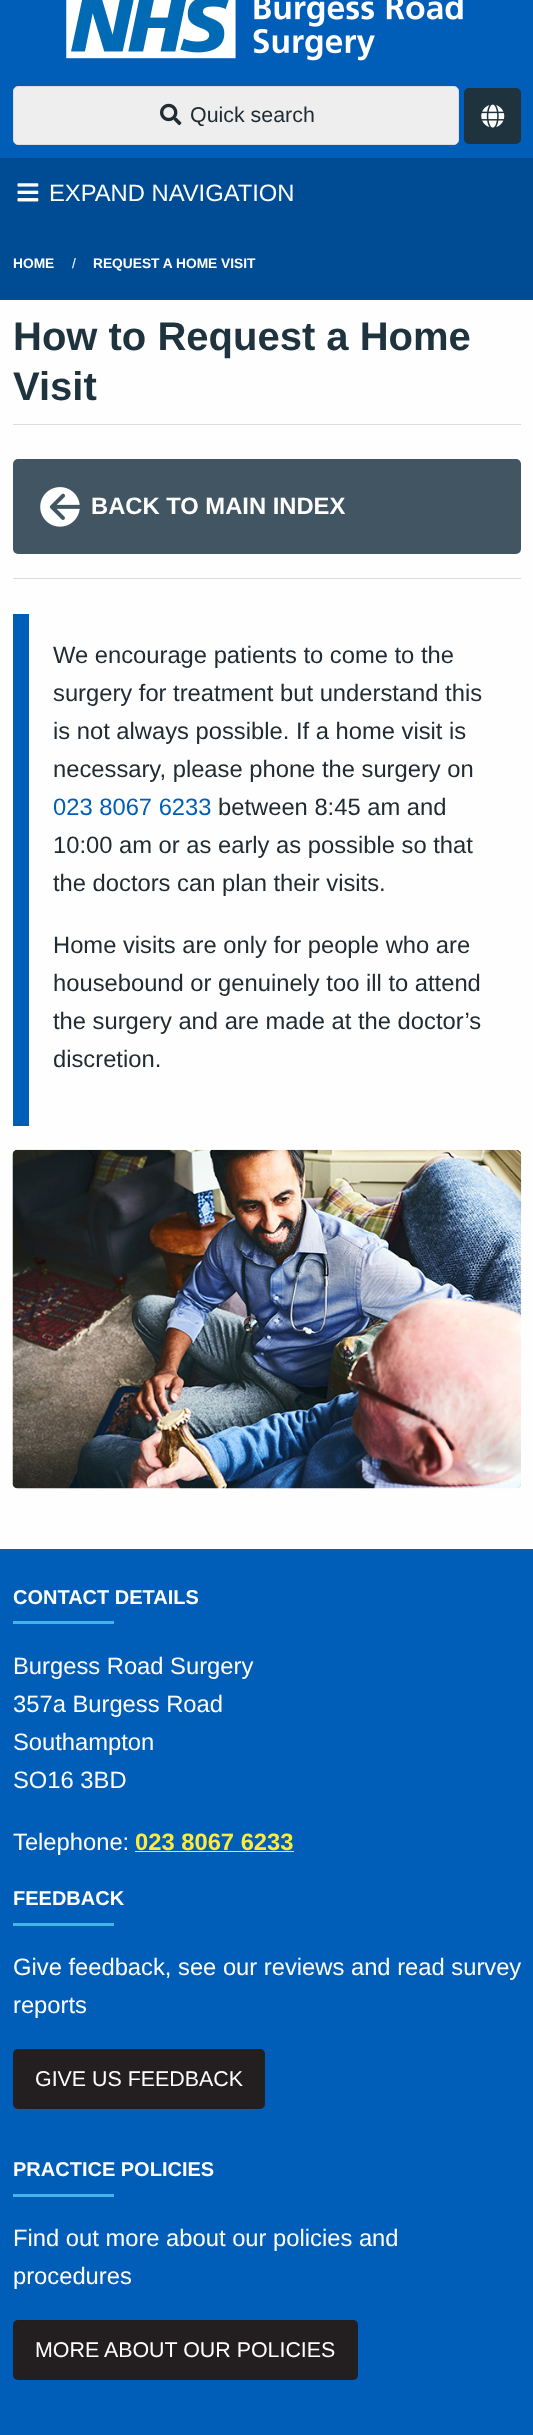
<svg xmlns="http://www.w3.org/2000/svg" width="533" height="2435">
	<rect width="100%" height="100%" fill="#004C94" />
	<rect x="0" y="0" width="533" height="158" fill="#005EB8" />
	<image x="66" y="0" width="397" height="61" href="assets/img1.png" />
	<rect x="13.5" y="86.5" width="445" height="58" rx="4.5" fill="#EEEEEE" stroke="#DDDDDD" />
	<image x="160" y="103" width="22" height="23" href="assets/img2.png" />
	<text x="190" y="122" font-family="Liberation Sans" font-size="21.4" fill="#212B32">Quick search</text>
	<rect x="464" y="88" width="57" height="56" rx="5" fill="#1E333E" />
	<image x="481" y="104" width="24" height="24" href="assets/img3.png" />
	<image x="17" y="183" width="22" height="19" href="assets/img4.png" />
	<text x="49" y="201" font-family="Liberation Sans" font-size="23.75" fill="#FEFEFE">EXPAND NAVIGATION</text>
	<text x="13" y="268" font-family="Liberation Sans" font-size="13.75" font-weight="700" fill="#FEFEFE">HOME</text>
	<text x="72" y="268" font-family="Liberation Sans" font-size="13.75" fill="#FEFEFE">/</text>
	<text x="93" y="268" font-family="Liberation Sans" font-size="13.75" font-weight="700" fill="#FEFEFE">REQUEST A HOME VISIT</text>
	<rect x="0" y="300" width="533" height="1249" fill="#FEFEFE" />
	<g font-family="Liberation Sans" font-size="40" font-weight="700" fill="#1E333E">
		<text x="13" y="350">How to Request a Home</text>
		<text x="13" y="400">Visit</text>
	</g>
	<rect x="13" y="424" width="508" height="1" fill="#DDDDDD" />
	<rect x="13" y="459" width="508" height="95" rx="5" fill="#425563" />
	<image x="40" y="487" width="40" height="40" href="assets/img5.png" />
	<text x="91" y="514" font-family="Liberation Sans" font-size="23.75" font-weight="700" fill="#FEFEFE">BACK TO MAIN INDEX</text>
	<rect x="13" y="578" width="508" height="1" fill="#DDDDDD" />
	<rect x="13" y="614" width="16" height="512" fill="#005EB8" />
	<g font-family="Liberation Sans" font-size="23.75" fill="#212B32">
		<text x="53" y="663">We encourage patients to come to the</text>
		<text x="53" y="701">surgery for treatment but understand this</text>
		<text x="53" y="739">is not always possible. If a home visit is</text>
		<text x="53" y="777">necessary, please phone the surgery on</text>
	</g>
	<text x="53" y="815" font-family="Liberation Sans" font-size="23.75" fill="#005EB8">023 8067 6233</text>
	<g font-family="Liberation Sans" font-size="23.75" fill="#212B32">
		<text x="218" y="815">between 8:45 am and</text>
		<text x="53" y="853">10:00 am or as early as possible so that</text>
		<text x="53" y="891">the doctors can plan their visits.</text>
		<text x="53" y="953">Home visits are only for people who are</text>
		<text x="53" y="991">housebound or genuinely too ill to attend</text>
		<text x="53" y="1029">the surgery and are made at the doctor’s</text>
		<text x="53" y="1067">discretion.</text>
	</g>
	<image x="12" y="1149" width="510" height="340" href="assets/img6.png" />
	<rect x="0" y="1549" width="533" height="886" fill="#005EB8" />
	<text x="13" y="1604" font-family="Liberation Sans" font-size="20" font-weight="700" fill="#FEFEFE">CONTACT DETAILS</text>
	<rect x="13" y="1621" width="101" height="3" fill="#41B6E6" />
	<g font-family="Liberation Sans" font-size="23.75" fill="#FEFEFE">
		<text x="13" y="1674">Burgess Road Surgery</text>
		<text x="13" y="1712">357a Burgess Road</text>
		<text x="13" y="1750">Southampton</text>
		<text x="13" y="1788">SO16 3BD</text>
		<text x="13" y="1850">Telephone:</text>
	</g>
	<text x="135" y="1850" font-family="Liberation Sans" font-size="23.75" font-weight="700" fill="#FFEB3B">023 8067 6233</text>
	<rect x="135" y="1851" width="159" height="1" fill="#FFEB3B" />
	<text x="13" y="1905" font-family="Liberation Sans" font-size="20" font-weight="700" fill="#FEFEFE">FEEDBACK</text>
	<rect x="13" y="1923" width="101" height="3" fill="#41B6E6" />
	<g font-family="Liberation Sans" font-size="23.75" fill="#FEFEFE">
		<text x="13" y="1975">Give feedback, see our reviews and read survey</text>
		<text x="13" y="2013">reports</text>
	</g>
	<rect x="13" y="2049" width="252" height="60" rx="5" fill="#231F20" />
	<text x="35" y="2086" font-family="Liberation Sans" font-size="21.4" fill="#FEFEFE">GIVE US FEEDBACK</text>
	<text x="13" y="2176" font-family="Liberation Sans" font-size="20" font-weight="700" fill="#FEFEFE">PRACTICE POLICIES</text>
	<rect x="13" y="2194" width="101" height="3" fill="#41B6E6" />
	<g font-family="Liberation Sans" font-size="23.75" fill="#FEFEFE">
		<text x="13" y="2246">Find out more about our policies and</text>
		<text x="13" y="2284">procedures</text>
	</g>
	<rect x="13" y="2320" width="345" height="60" rx="5" fill="#231F20" />
	<text x="35" y="2357" font-family="Liberation Sans" font-size="21.4" fill="#FEFEFE">MORE ABOUT OUR POLICIES</text>
</svg>
